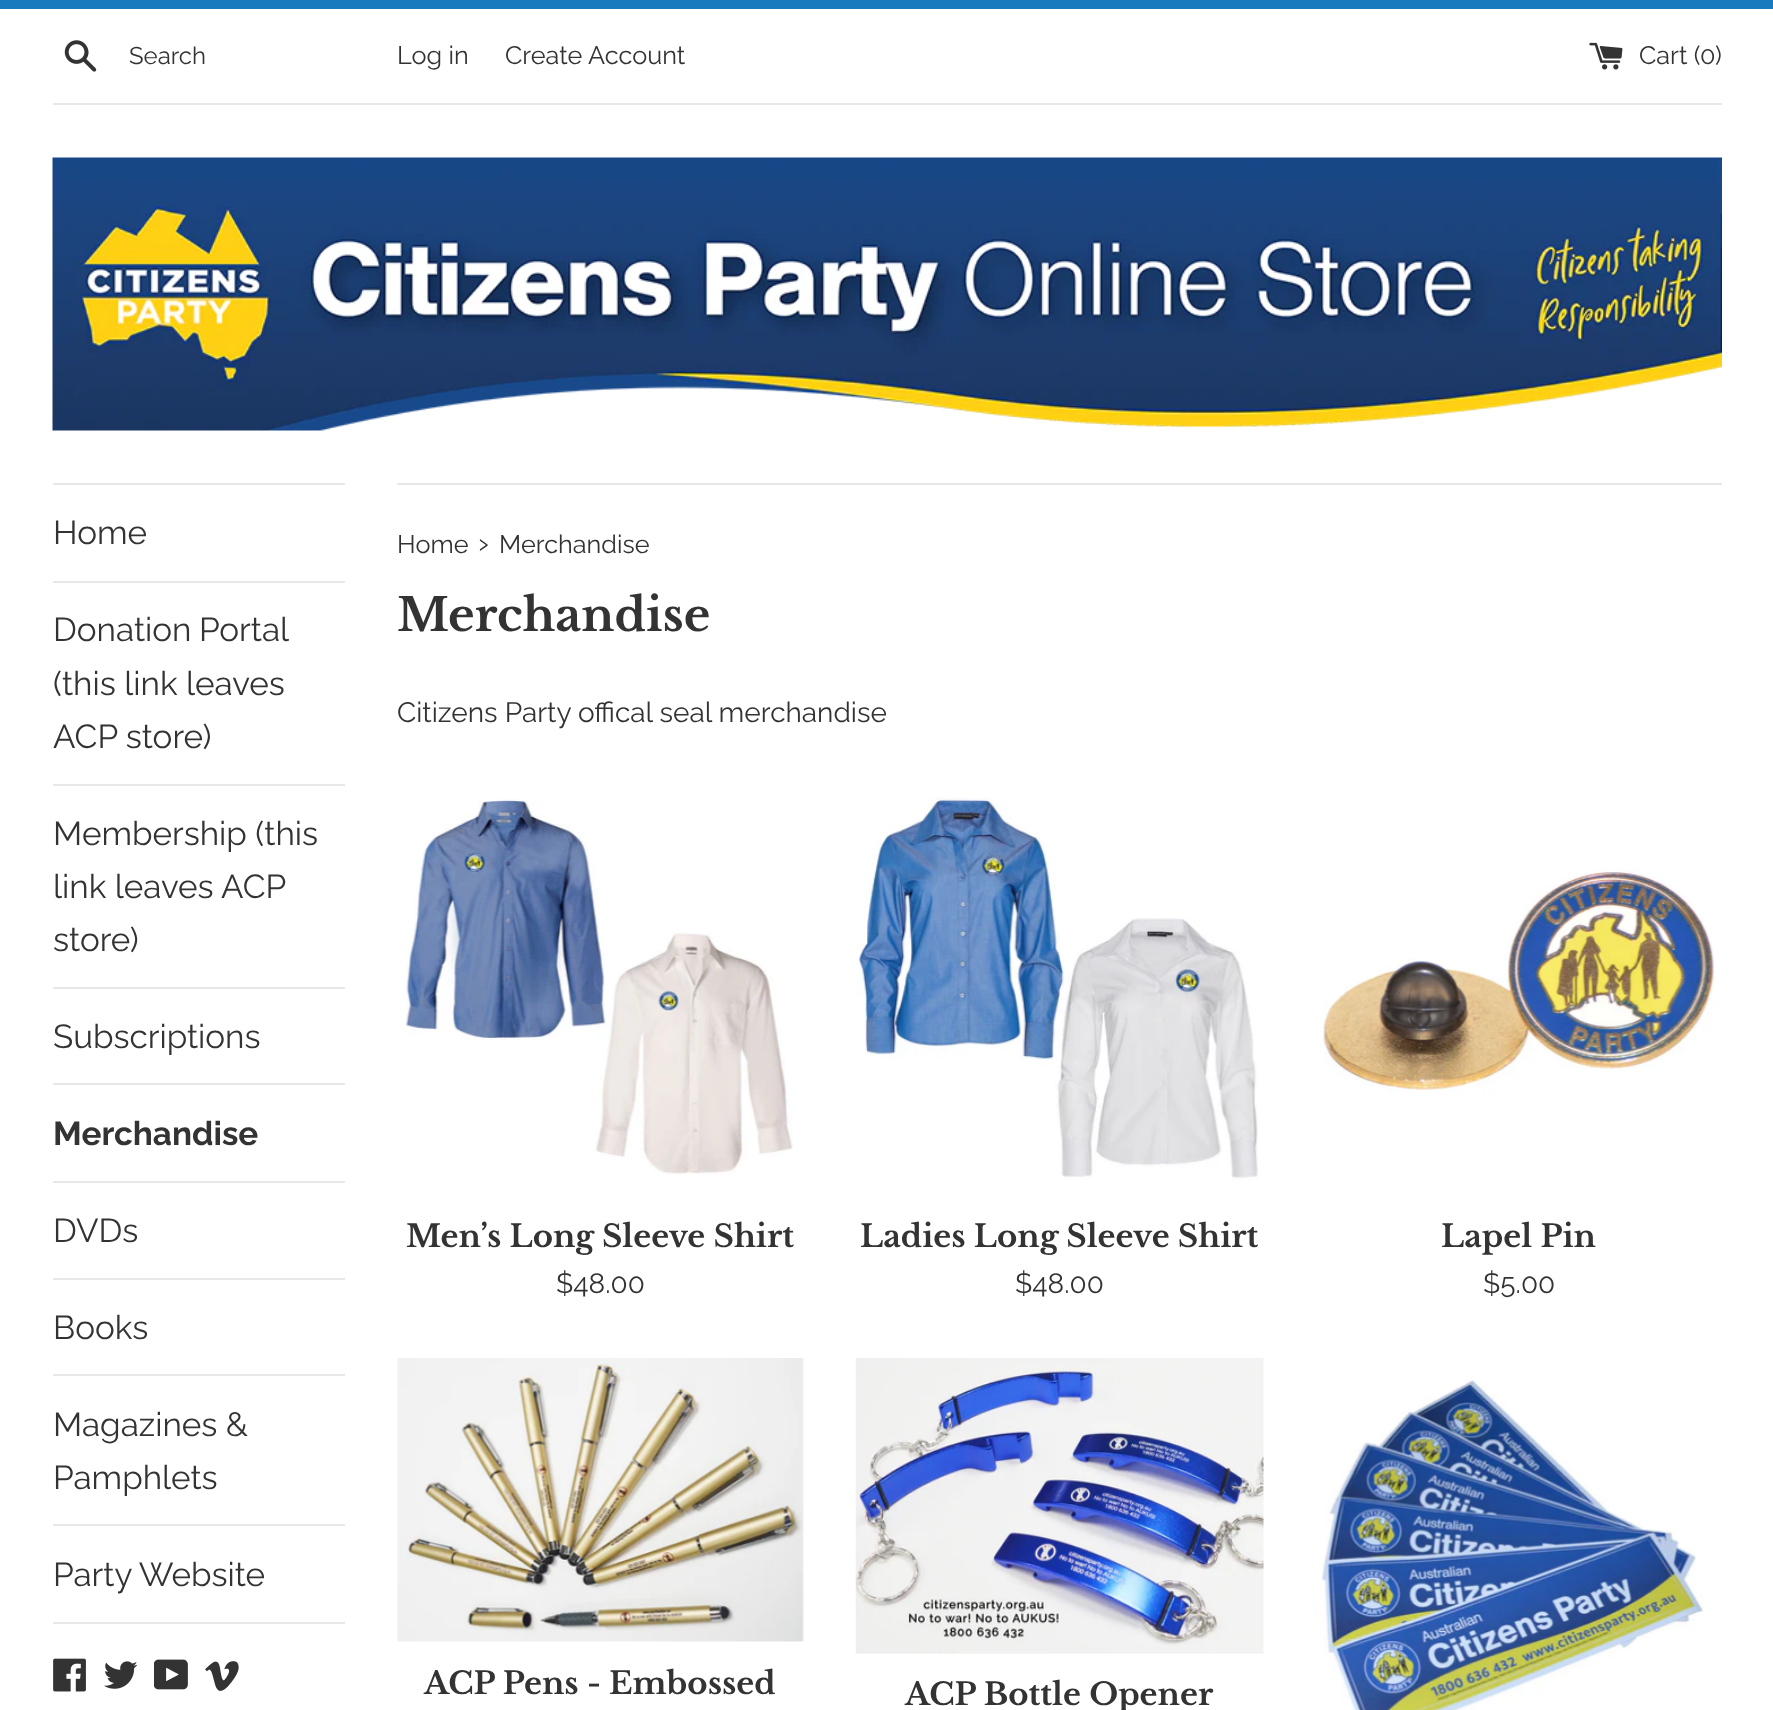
<svg xmlns="http://www.w3.org/2000/svg" width="1773" height="1710">
	<rect width="100%" height="100%" fill="#FFFFFF" />
	<rect x="0" y="0" width="1773" height="9" fill="#197BBD" />
	<image x="64" y="40" width="33" height="32" href="assets/img1.png" />
	<text x="129" y="64" font-family="Raleway" font-size="24" fill="#333333">Search</text>
	<g font-family="Raleway" font-size="25.25" fill="#333333">
		<text x="397" y="64">Log in</text>
		<text x="505" y="64">Create Account</text>
	</g>
	<image x="1589" y="42" width="34" height="28" href="assets/img2.png" />
	<g font-family="Raleway" font-size="25.25" fill="#333333">
		<text x="1639" y="64">Cart (</text>
		<text x="1700" y="64">0</text>
		<text x="1715" y="64">)</text>
	</g>
	<rect x="53" y="103" width="1669" height="2" fill="#E8E8E8" />
	<image x="52" y="157" width="1670" height="274" href="assets/img3.png" />
	<rect x="53" y="483" width="292" height="2" fill="#E8E8E8" />
	<rect x="53" y="581" width="292" height="2" fill="#E8E8E8" />
	<text x="53" y="544" font-family="Raleway" font-size="33.25" fill="#333333">Home</text>
	<rect x="53" y="784" width="292" height="2" fill="#E8E8E8" />
	<g font-family="Raleway" font-size="33.25" fill="#333333">
		<text x="53" y="641" word-spacing="-1">Donation Portal</text>
		<text x="53" y="695">(this link leaves</text>
		<text x="53" y="748">ACP store)</text>
	</g>
	<rect x="53" y="987" width="292" height="2" fill="#E8E8E8" />
	<g font-family="Raleway" font-size="33.25" fill="#333333">
		<text x="53" y="845">Membership (this</text>
		<text x="53" y="898">link leaves ACP</text>
		<text x="53" y="951">store)</text>
	</g>
	<rect x="53" y="1083" width="292" height="2" fill="#E8E8E8" />
	<text x="53" y="1048" font-family="Raleway" font-size="33.25" fill="#333333">Subscriptions</text>
	<rect x="53" y="1181" width="292" height="2" fill="#E8E8E8" />
	<text x="53" y="1145" font-family="Raleway" font-size="33.25" font-weight="700" fill="#333333">Merchandise</text>
	<rect x="53" y="1278" width="292" height="2" fill="#E8E8E8" />
	<text x="53" y="1242" font-family="Raleway" font-size="33.25" fill="#333333">DVDs</text>
	<rect x="53" y="1374" width="292" height="2" fill="#E8E8E8" />
	<text x="53" y="1339" font-family="Raleway" font-size="33.25" fill="#333333">Books</text>
	<rect x="53" y="1524" width="292" height="2" fill="#E8E8E8" />
	<g font-family="Raleway" font-size="33.25" fill="#333333">
		<text x="53" y="1436">Magazines &amp;</text>
		<text x="53" y="1489">Pamphlets</text>
	</g>
	<rect x="53" y="1622" width="292" height="2" fill="#E8E8E8" />
	<text x="53" y="1586" font-family="Raleway" font-size="33.25" fill="#333333">Party Website</text>
	<image x="53" y="1658" width="33" height="34" href="assets/img4.png" />
	<image x="104" y="1661" width="34" height="28" href="assets/img5.png" />
	<image x="154" y="1659" width="34" height="31" href="assets/img6.png" />
	<image x="205" y="1661" width="34" height="30" href="assets/img7.png" />
	<rect x="397" y="483" width="1325" height="2" fill="#E8E8E8" />
	<text x="397" y="553" font-family="Raleway" font-size="25.25" fill="#333333">Home</text>
	<text x="478" y="553" font-family="Raleway" font-size="30.75" fill="#333333">›</text>
	<text x="499" y="553" font-family="Raleway" font-size="25.25" fill="#333333">Merchandise</text>
	<text x="397" y="631" font-family="Libre Baskerville" font-size="45.5" font-weight="700" fill="#333333">Merchandise</text>
	<text x="397" y="722" font-family="Raleway" font-size="28" fill="#333333">Citizens Party offical seal merchandise</text>
	<image x="405" y="799" width="388" height="376" href="assets/img8.png" />
	<text x="406" y="1247" font-family="Libre Baskerville" font-size="30.75" font-weight="700" fill="#333333">Men’s Long Sleeve Shirt</text>
	<text x="556" y="1293" font-family="Raleway" font-size="28" fill="#333333">$48.00</text>
	<image x="856" y="796" width="402" height="384" href="assets/img9.png" />
	<text x="860" y="1247" font-family="Libre Baskerville" font-size="30.75" font-weight="700" fill="#333333">Ladies Long Sleeve Shirt</text>
	<text x="1015" y="1293" font-family="Raleway" font-size="28" fill="#333333">$48.00</text>
	<image x="1323" y="869" width="392" height="225" href="assets/img10.png" />
	<text x="1441" y="1247" font-family="Libre Baskerville" font-size="30.75" font-weight="700" fill="#333333">Lapel Pin</text>
	<text x="1483" y="1293" font-family="Raleway" font-size="28" fill="#333333">$5.00</text>
	<image x="397" y="1358" width="407" height="284" href="assets/img11.png" />
	<text x="424" y="1694" font-family="Libre Baskerville" font-size="30.75" font-weight="700" fill="#333333">ACP Pens - Embossed</text>
	<image x="855" y="1358" width="409" height="296" href="assets/img12.png" />
	<text x="905" y="1705" font-family="Libre Baskerville" font-size="30.75" font-weight="700" fill="#333333">ACP Bottle Opener</text>
	<image x="1319" y="1380" width="385" height="330" href="assets/img13.png" />
</svg>
